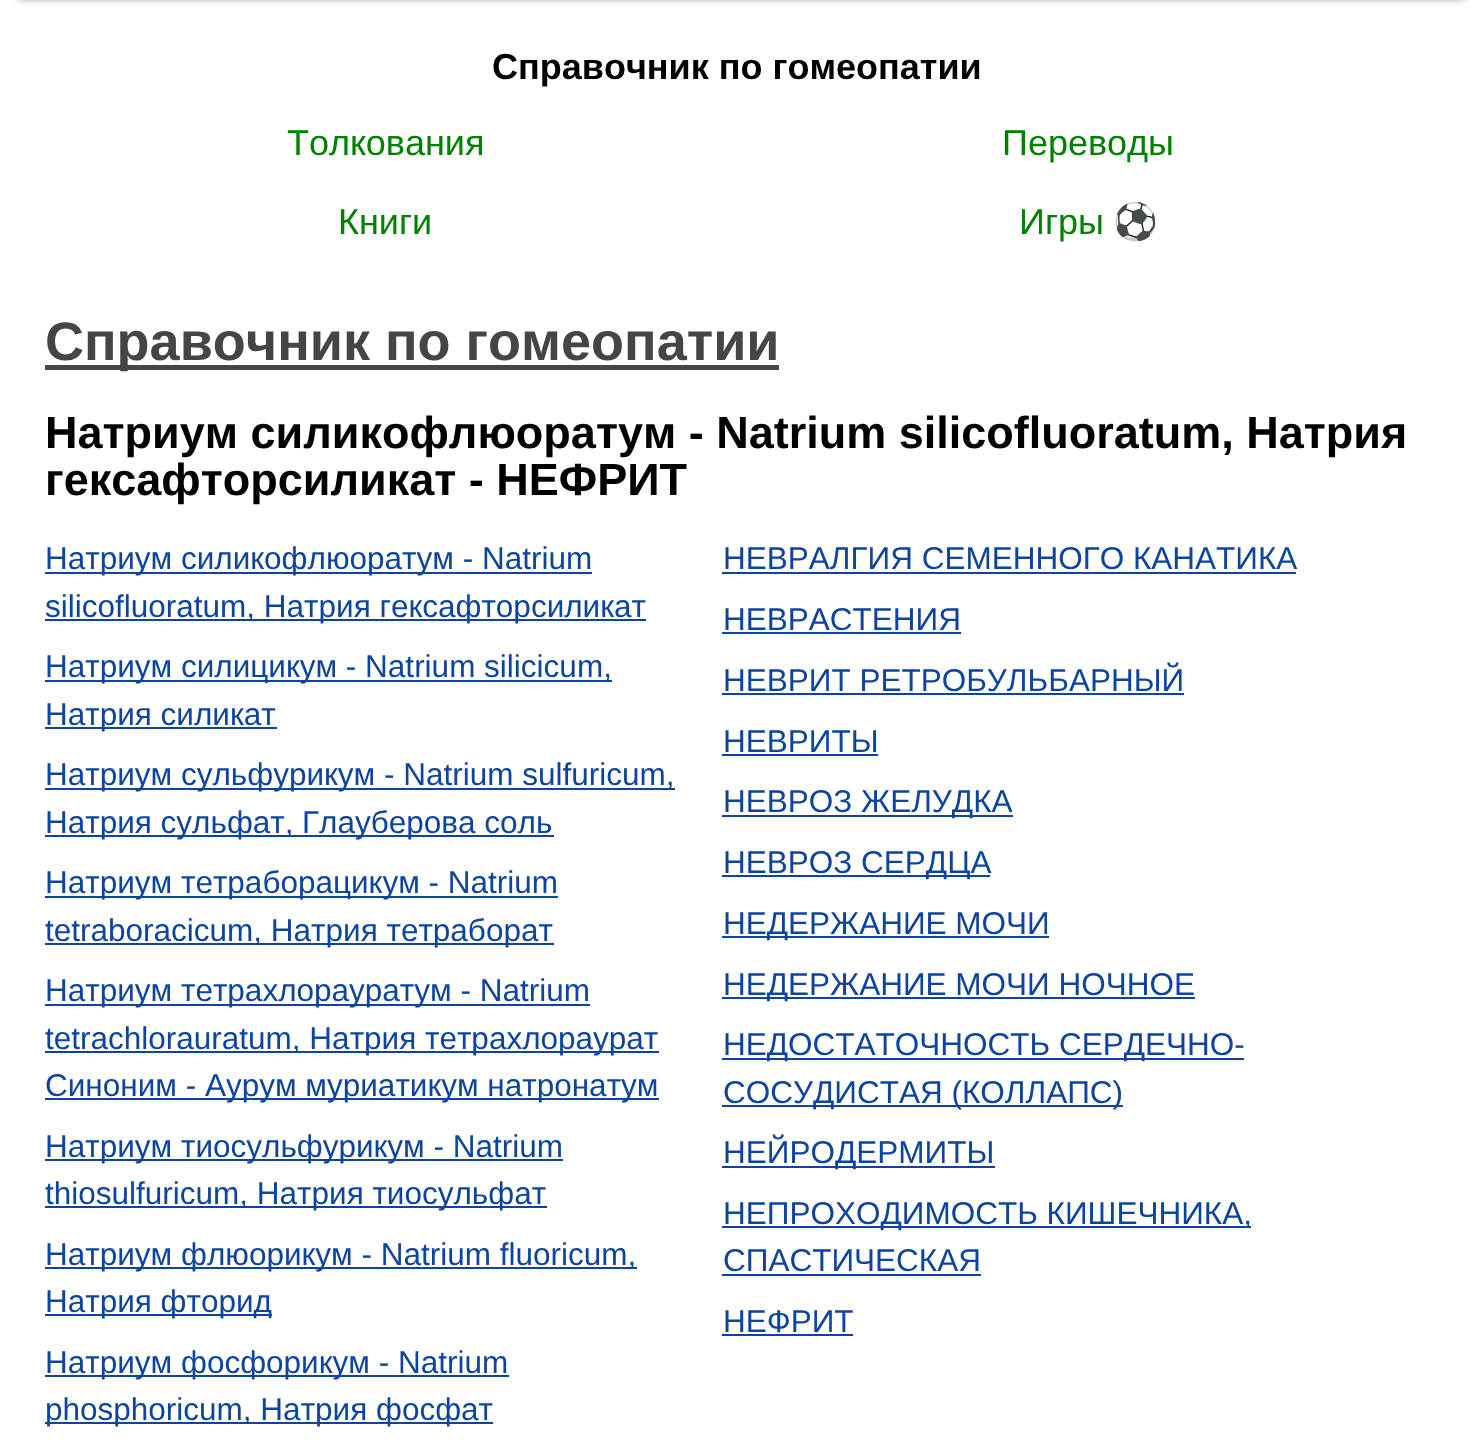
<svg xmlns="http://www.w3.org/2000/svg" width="1473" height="1452">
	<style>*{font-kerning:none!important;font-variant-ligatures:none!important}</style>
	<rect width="100%" height="100%" fill="#FFFFFF" />
	<rect x="16" y="-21" width="1451" height="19" rx="7" fill="#000000" fill-opacity="0.5" filter="blur(4.5px)" />
	<text x="492" y="79" font-family="Liberation Sans" font-size="36" font-weight="700" fill="#000000">Справочник по гомеопатии</text>
	<g font-family="Liberation Sans" font-size="36" fill="#008000">
		<text x="287" y="155">Толкования</text>
		<text x="1002" y="155">Переводы</text>
		<text x="338" y="234">Книги</text>
		<text x="1019" y="234">Игры</text>
	</g>
	<text x="1113" y="234" font-family="Noto Color Emoji" font-size="36" fill="#008000">⚽</text>
	<rect x="45" y="365" width="734" height="5" fill="#454545" />
	<text x="45" y="360" font-family="Liberation Sans" font-size="54" font-weight="700" fill="#454545">Справочник по гомеопатии</text>
	<g font-family="Liberation Sans" font-size="45" font-weight="700" fill="#000000">
		<text x="45" y="448">Натриум силикофлюоратум - Natrium silicofluoratum, Натрия</text>
		<text x="45" y="495">гексафторсиликат - НЕФРИТ</text>
	</g>
	<rect x="45" y="572" width="547" height="2" fill="#0D44A0" />
	<text x="45" y="569" font-family="Liberation Sans" font-size="31.5" fill="#0D44A0">Натриум силикофлюоратум - Natrium</text>
	<rect x="45" y="619" width="601" height="2" fill="#0D44A0" />
	<text x="45" y="617" font-family="Liberation Sans" font-size="31.5" fill="#0D44A0">silicofluoratum, Натрия гексафторсиликат</text>
	<rect x="45" y="680" width="567" height="2" fill="#0D44A0" />
	<text x="45" y="677" font-family="Liberation Sans" font-size="31.5" fill="#0D44A0">Натриум силицикум - Natrium silicicum,</text>
	<rect x="45" y="727" width="232" height="2" fill="#0D44A0" />
	<text x="45" y="725" font-family="Liberation Sans" font-size="31.5" fill="#0D44A0">Натрия силикат</text>
	<rect x="45" y="788" width="630" height="2" fill="#0D44A0" />
	<text x="45" y="785" font-family="Liberation Sans" font-size="31.5" fill="#0D44A0">Натриум сульфурикум - Natrium sulfuricum,</text>
	<rect x="45" y="835" width="509" height="2" fill="#0D44A0" />
	<text x="45" y="833" font-family="Liberation Sans" font-size="31.5" fill="#0D44A0">Натрия сульфат,</text>
	<text x="302" y="833" font-family="Liberation Sans" font-size="31.5" fill="#0D44A0">Глауберова соль</text>
	<rect x="45" y="896" width="513" height="2" fill="#0D44A0" />
	<text x="45" y="893" font-family="Liberation Sans" font-size="31.5" fill="#0D44A0">Натриум тетраборацикум - Natrium</text>
	<rect x="45" y="943" width="509" height="2" fill="#0D44A0" />
	<text x="45" y="941" font-family="Liberation Sans" font-size="31.5" fill="#0D44A0">tetraboracicum, Натрия тетраборат</text>
	<rect x="45" y="1004" width="545" height="2" fill="#0D44A0" />
	<text x="45" y="1001" font-family="Liberation Sans" font-size="31.5" fill="#0D44A0">Натриум тетрахлорауратум - Natrium</text>
	<rect x="45" y="1051" width="614" height="2" fill="#0D44A0" />
	<text x="45" y="1049" font-family="Liberation Sans" font-size="31.5" fill="#0D44A0">tetrachlorauratum, Натрия тетрахлораурат</text>
	<rect x="45" y="1098" width="614" height="2" fill="#0D44A0" />
	<text x="45" y="1096" font-family="Liberation Sans" font-size="31.5" fill="#0D44A0">Синоним - Аурум муриатикум натронатум</text>
	<rect x="45" y="1159" width="518" height="2" fill="#0D44A0" />
	<text x="45" y="1157" font-family="Liberation Sans" font-size="31.5" fill="#0D44A0">Натриум тиосульфурикум - Natrium</text>
	<rect x="45" y="1206" width="502" height="2" fill="#0D44A0" />
	<text x="45" y="1204" font-family="Liberation Sans" font-size="31.5" fill="#0D44A0">thiosulfuricum, Натрия тиосульфат</text>
	<rect x="45" y="1267" width="592" height="2" fill="#0D44A0" />
	<text x="45" y="1265" font-family="Liberation Sans" font-size="31.5" fill="#0D44A0">Натриум флюорикум - Natrium fluoricum,</text>
	<rect x="45" y="1314" width="227" height="2" fill="#0D44A0" />
	<text x="45" y="1312" font-family="Liberation Sans" font-size="31.5" fill="#0D44A0">Натрия фторид</text>
	<rect x="45" y="1375" width="464" height="2" fill="#0D44A0" />
	<text x="45" y="1373" font-family="Liberation Sans" font-size="31.5" fill="#0D44A0">Натриум фосфорикум - Natrium</text>
	<rect x="45" y="1422" width="448" height="2" fill="#0D44A0" />
	<g font-family="Liberation Sans" font-size="31.5" fill="#0D44A0">
		<text x="45" y="1420">phosphoricum, Натрия фосфат</text>
		<text x="723" y="569">НЕВРАЛГИЯ СЕМЕННОГО КАНАТИКА</text>
	</g>
	<rect x="722" y="572" width="574" height="2" fill="#0D44A0" />
	<text x="723" y="630" font-family="Liberation Sans" font-size="31.5" fill="#0D44A0">НЕВРАСТЕНИЯ</text>
	<rect x="722" y="632" width="239" height="2" fill="#0D44A0" />
	<text x="723" y="691" font-family="Liberation Sans" font-size="31.5" fill="#0D44A0">НЕВРИТ РЕТРОБУЛЬБАРНЫЙ</text>
	<rect x="722" y="693" width="462" height="2" fill="#0D44A0" />
	<text x="723" y="752" font-family="Liberation Sans" font-size="31.5" fill="#0D44A0">НЕВРИТЫ</text>
	<rect x="722" y="754" width="156" height="2" fill="#0D44A0" />
	<rect x="722" y="815" width="291" height="2" fill="#0D44A0" />
	<text x="723" y="812" font-family="Liberation Sans" font-size="31.5" fill="#0D44A0">НЕВРОЗ ЖЕЛУДКА</text>
	<rect x="722" y="875" width="268" height="2" fill="#0D44A0" />
	<text x="723" y="873" font-family="Liberation Sans" font-size="31.5" fill="#0D44A0">НЕВРОЗ СЕРДЦА</text>
	<rect x="722" y="936" width="327" height="2" fill="#0D44A0" />
	<text x="723" y="934" font-family="Liberation Sans" font-size="31.5" fill="#0D44A0">НЕДЕРЖАНИЕ МОЧИ</text>
	<rect x="722" y="997" width="473" height="2" fill="#0D44A0" />
	<text x="723" y="995" font-family="Liberation Sans" font-size="31.5" fill="#0D44A0">НЕДЕРЖАНИЕ МОЧИ НОЧНОЕ</text>
	<rect x="722" y="1058" width="522" height="2" fill="#0D44A0" />
	<text x="723" y="1055" font-family="Liberation Sans" font-size="31.5" fill="#0D44A0">НЕДОСТАТОЧНОСТЬ</text>
	<text x="1059" y="1055" font-family="Liberation Sans" font-size="31.5" fill="#0D44A0">СЕРДЕЧНО-</text>
	<rect x="722" y="1105" width="401" height="2" fill="#0D44A0" />
	<text x="723" y="1103" font-family="Liberation Sans" font-size="31.5" fill="#0D44A0">СОСУДИСТАЯ (КОЛЛАПС)</text>
	<rect x="722" y="1166" width="273" height="2" fill="#0D44A0" />
	<text x="723" y="1163" font-family="Liberation Sans" font-size="31.5" fill="#0D44A0">НЕЙРОДЕРМИТЫ</text>
	<rect x="722" y="1226" width="529" height="2" fill="#0D44A0" />
	<g font-family="Liberation Sans" font-size="31.5" fill="#0D44A0">
		<text x="723" y="1224">НЕПРОХОДИМОСТЬ КИШЕЧНИКА,</text>
		<text x="723" y="1271">СПАСТИЧЕСКАЯ</text>
	</g>
	<rect x="722" y="1274" width="259" height="2" fill="#0D44A0" />
	<text x="723" y="1332" font-family="Liberation Sans" font-size="31.5" fill="#0D44A0">НЕФРИТ</text>
	<rect x="722" y="1334" width="131" height="2" fill="#0D44A0" />
</svg>
